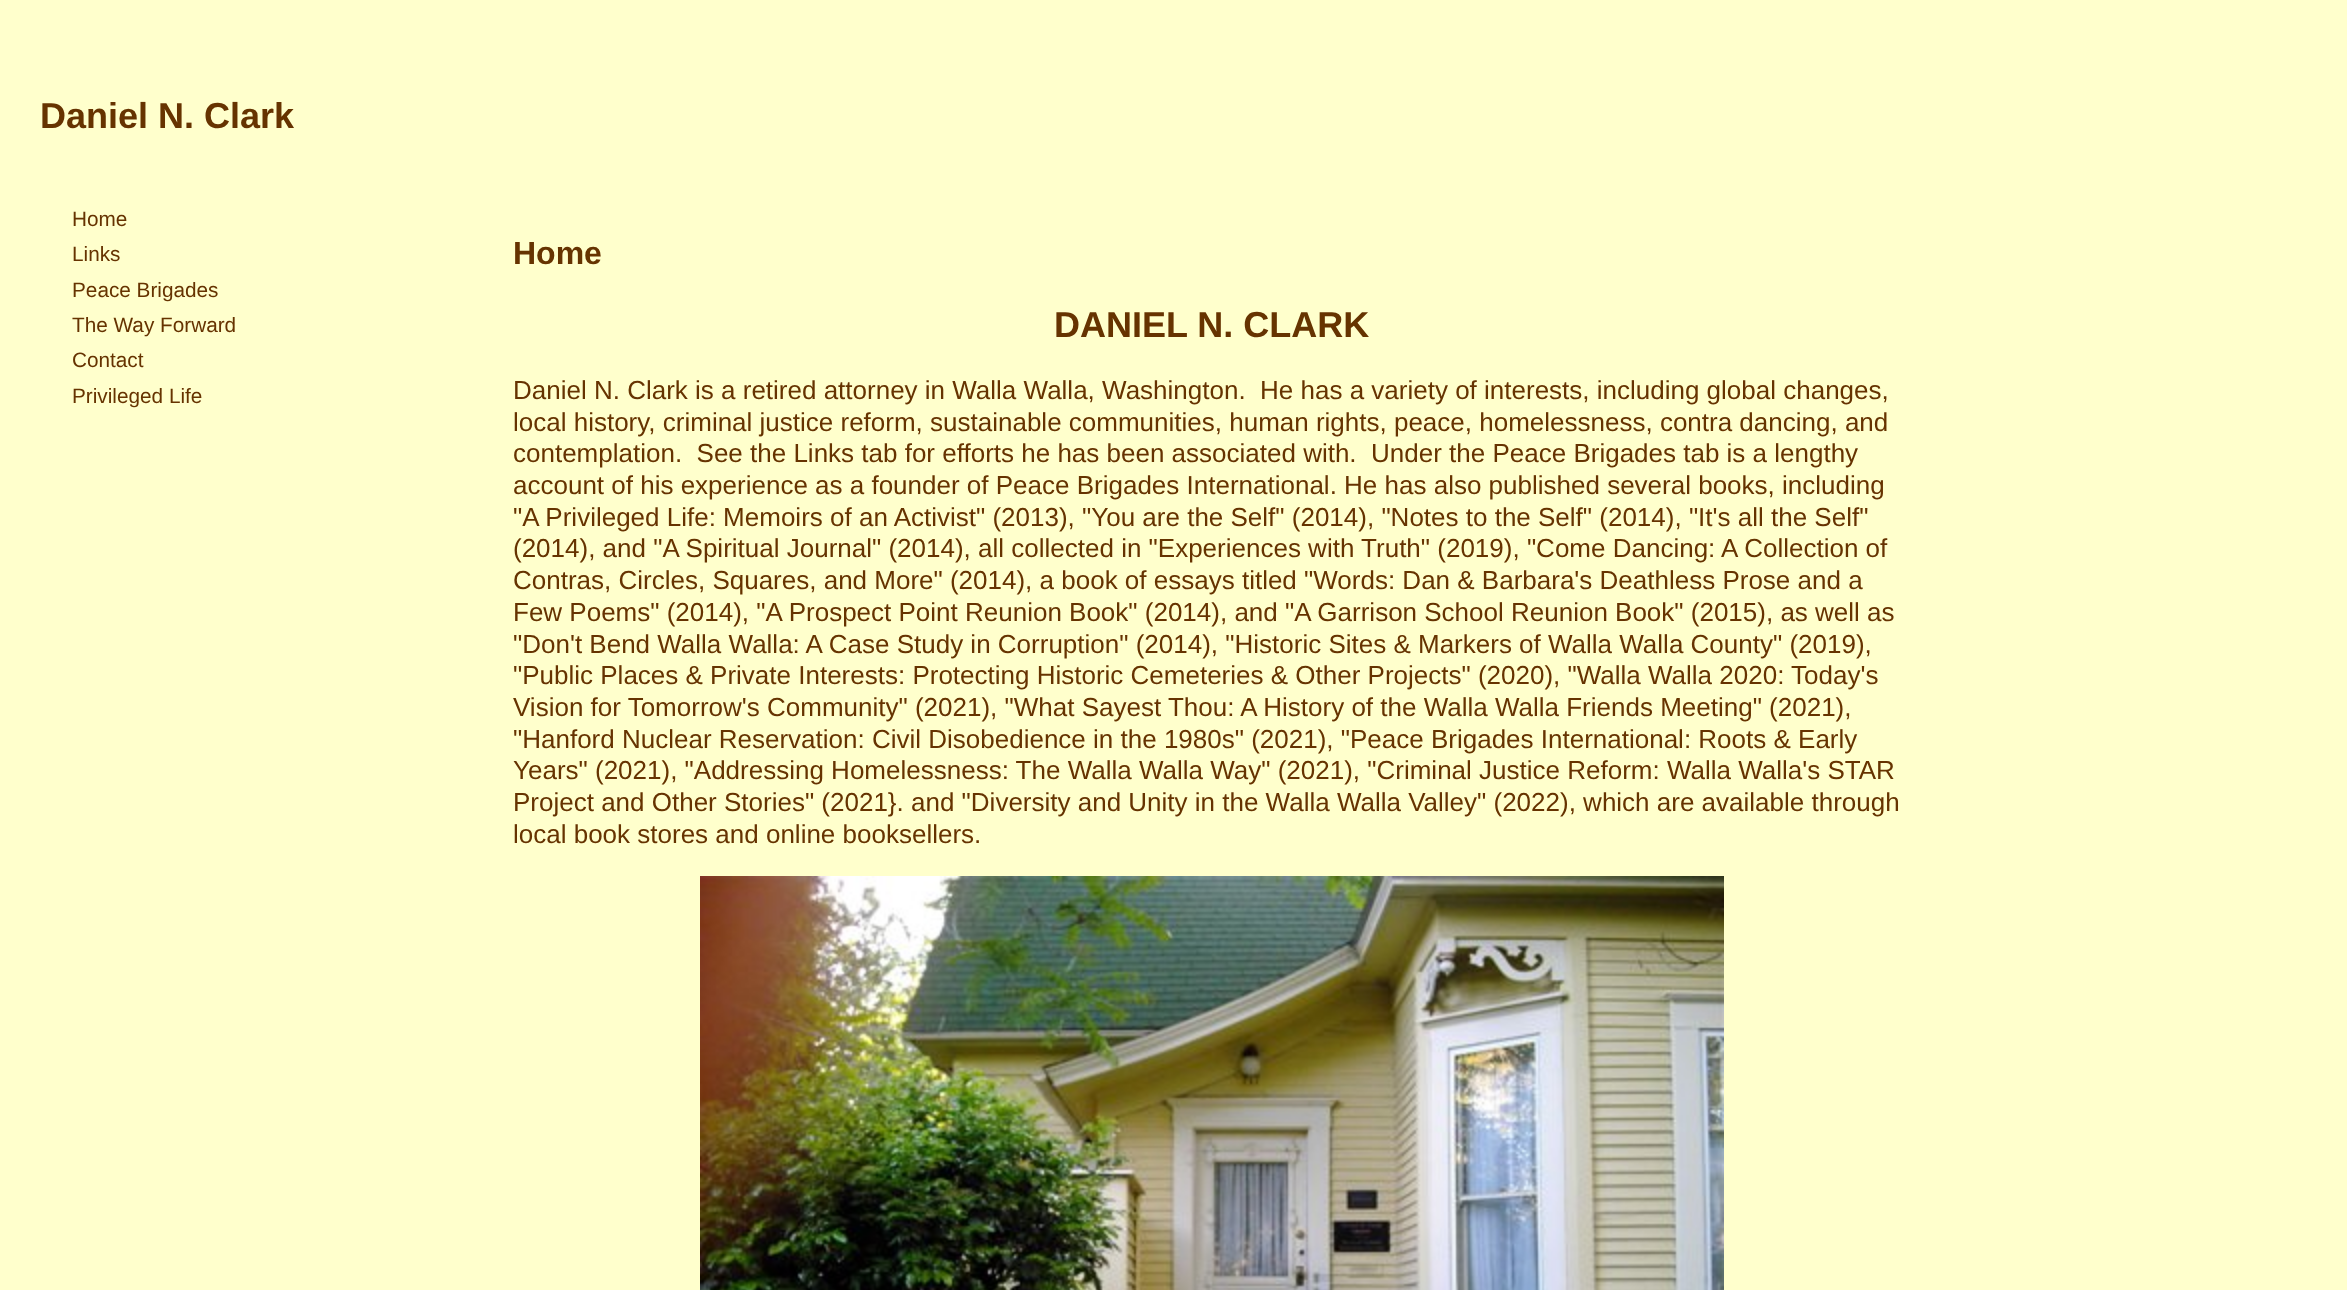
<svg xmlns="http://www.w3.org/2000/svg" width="2347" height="1290">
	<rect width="100%" height="100%" fill="#FFFFCC" />
	<text x="40" y="128" font-family="Liberation Sans" font-size="36" font-weight="700" fill="#663300">Daniel N. Clark</text>
	<g font-family="Liberation Sans" font-size="20.75" fill="#663300">
		<text x="72" y="226">Home</text>
		<text x="72" y="261">Links</text>
		<text x="72" y="297">Peace Brigades</text>
		<text x="72" y="332">The Way Forward</text>
		<text x="72" y="367">Contact</text>
		<text x="72" y="403">Privileged Life</text>
	</g>
	<text x="513" y="264" font-family="Liberation Sans" font-size="32" font-weight="700" fill="#663300">Home</text>
	<text x="1054" y="337" font-family="Liberation Sans" font-size="36" font-weight="700" fill="#663300">DANIEL N. CLARK</text>
	<g font-family="Liberation Sans" font-size="26" fill="#663300">
		<text x="513" y="399" xml:space="preserve">Daniel N. Clark is a retired attorney in Walla Walla, Washington.  He has a variety of interests, including global changes,</text>
		<text x="513" y="431">local history, criminal justice reform, sustainable communities, human rights, peace, homelessness, contra dancing, and</text>
		<text x="513" y="462" xml:space="preserve">contemplation.  See the Links tab for efforts he has been associated with.  Under the Peace Brigades tab is a lengthy</text>
		<text x="513" y="494">account of his experience as a founder of Peace Brigades International. He has also published several books, including</text>
		<text x="513" y="526">"A Privileged Life: Memoirs of an Activist" (2013), "You are the Self" (2014), "Notes to the Self" (2014), "It's all the Self"</text>
		<text x="513" y="557">(2014), and "A Spiritual Journal" (2014), all collected in "Experiences with Truth" (2019), "Come Dancing: A Collection of</text>
		<text x="513" y="589">Contras, Circles, Squares, and More" (2014), a book of essays titled "Words: Dan &amp; Barbara's Deathless Prose and a</text>
		<text x="513" y="621">Few Poems" (2014), "A Prospect Point Reunion Book" (2014), and "A Garrison School Reunion Book" (2015), as well as</text>
		<text x="513" y="653">"Don't Bend Walla Walla: A Case Study in Corruption" (2014), "Historic Sites &amp; Markers of Walla Walla County" (2019),</text>
		<text x="513" y="684">"Public Places &amp; Private Interests: Protecting Historic Cemeteries &amp; Other Projects" (2020), "Walla Walla 2020: Today's</text>
		<text x="513" y="716">Vision for Tomorrow's Community" (2021), "What Sayest Thou: A History of the Walla Walla Friends Meeting" (2021),</text>
		<text x="513" y="748">"Hanford Nuclear Reservation: Civil Disobedience in the 1980s" (2021), "Peace Brigades International: Roots &amp; Early</text>
		<text x="513" y="779">Years" (2021), "Addressing Homelessness: The Walla Walla Way" (2021), "Criminal Justice Reform: Walla Walla's STAR</text>
		<text x="513" y="811">Project and Other Stories" (2021}. and "Diversity and Unity in the Walla Walla Valley" (2022), which are available through</text>
		<text x="513" y="843">local book stores and online booksellers.</text>
	</g>
	<image x="700" y="876" width="1024" height="414" href="assets/img1.png" />
</svg>
